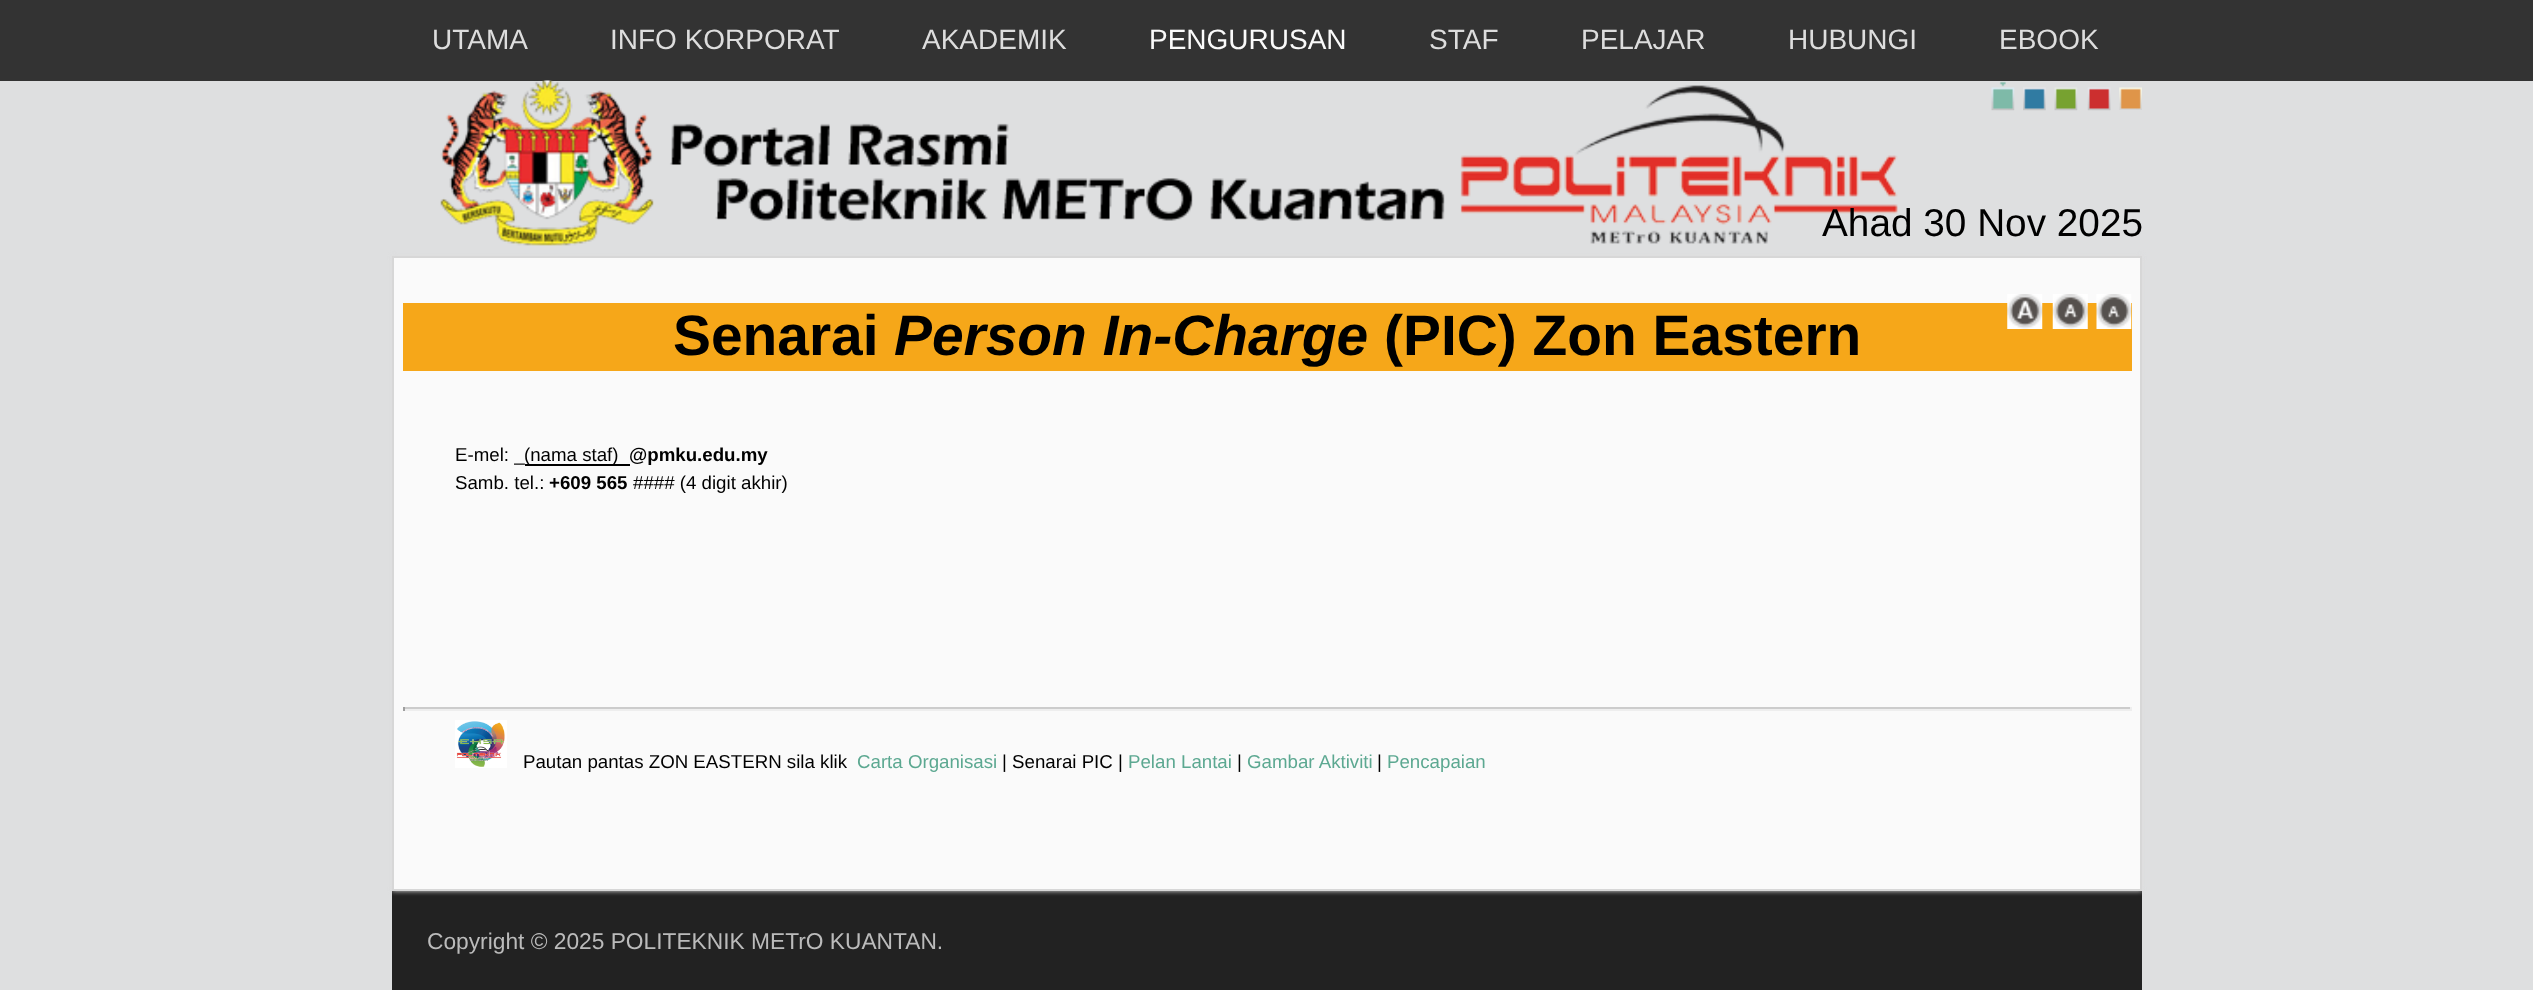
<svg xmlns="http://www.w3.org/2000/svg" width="2533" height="990">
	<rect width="100%" height="100%" fill="#DEDFE0" />
	<rect x="0" y="0" width="2533" height="81" fill="#333333" />
	<g font-family="Liberation Sans" font-size="28" fill="#DDDDDD">
		<text x="432" y="49">UTAMA</text>
		<text x="610" y="49">INFO KORPORAT</text>
		<text x="922" y="49">AKADEMIK</text>
	</g>
	<text x="1149" y="49" font-family="Liberation Sans" font-size="28" fill="#FAFAFA">PENGURUSAN</text>
	<g font-family="Liberation Sans" font-size="28" fill="#DDDDDD">
		<text x="1429" y="49">STAF</text>
		<text x="1581" y="49">PELAJAR</text>
		<text x="1788" y="49">HUBUNGI</text>
		<text x="1999" y="49">EBOOK</text>
	</g>
	<image x="440" y="80" width="1458" height="166" href="assets/img1.png" />
	<image x="1991" y="81" width="24" height="30" href="assets/img2.png" />
	<image x="2023" y="87" width="23" height="24" href="assets/img3.png" />
	<image x="2054" y="87" width="24" height="24" href="assets/img4.png" />
	<image x="2087" y="87" width="24" height="24" href="assets/img5.png" />
	<image x="2119" y="87" width="23" height="23" href="assets/img6.png" />
	<text x="1822" y="236" font-family="Liberation Sans" font-size="38.75" fill="#000000">Ahad 30 Nov 2025</text>
	<rect x="392" y="891" width="1750" height="99" fill="#222222" />
	<rect x="392" y="256" width="1750" height="635" fill="#DDDDDD" filter="blur(2.5px)" />
	<rect x="393" y="257" width="1748" height="633" fill="#FAFAFA" stroke="#D7D7D7" stroke-width="2" />
	<rect x="403" y="303" width="1729" height="68" fill="#F6A719" />
	<text x="673" y="355" font-family="Liberation Sans" font-size="56.9" font-weight="700" fill="#000000">Senarai</text>
	<text x="894" y="355" font-family="Liberation Sans" font-size="56.9" font-weight="700" font-style="italic" fill="#000000">Person In-Charge</text>
	<text x="1384" y="355" font-family="Liberation Sans" font-size="56.9" font-weight="700" fill="#000000">(PIC) Zon Eastern</text>
	<text x="455" y="461" font-family="Liberation Sans" font-size="18.7" fill="#000000">E-mel: _</text>
	<rect x="525" y="464" width="105" height="2" fill="#000000" />
	<text x="524" y="461" font-family="Liberation Sans" font-size="18.7" fill="#000000">(nama staf)</text>
	<text x="629" y="461" font-family="Liberation Sans" font-size="18.7" font-weight="700" fill="#000000">@pmku.edu.my</text>
	<text x="455" y="489" font-family="Liberation Sans" font-size="18.7" fill="#000000">Samb. tel.:</text>
	<text x="549" y="489" font-family="Liberation Sans" font-size="18.7" font-weight="700" fill="#000000">+609 565</text>
	<text x="633" y="489" font-family="Liberation Sans" font-size="18.7" fill="#000000">#### (4 digit akhir)</text>
	<rect x="403" y="707" width="1729" height="2" fill="#CCCCCC" />
	<rect x="2130" y="707" width="2" height="4" fill="#EEEEEE" />
	<rect x="403" y="709" width="1729" height="2" fill="#EEEEEE" />
	<rect x="403" y="707" width="2" height="4" fill="#9F9F9F" />
	<image x="455" y="720" width="52" height="48" href="assets/img7.png" />
	<text x="523" y="768" font-family="Liberation Sans" font-size="18.7" fill="#000000">Pautan pantas ZON EASTERN sila klik</text>
	<text x="857" y="768" font-family="Liberation Sans" font-size="18.7" fill="#5CA891">Carta Organisasi</text>
	<text x="1002" y="768" font-family="Liberation Sans" font-size="18.7" fill="#000000">| Senarai PIC |</text>
	<text x="1128" y="768" font-family="Liberation Sans" font-size="18.7" fill="#5CA891">Pelan Lantai</text>
	<text x="1237" y="768" font-family="Liberation Sans" font-size="18.7" fill="#000000">|</text>
	<text x="1247" y="768" font-family="Liberation Sans" font-size="18.7" fill="#5CA891">Gambar Aktiviti</text>
	<text x="1377" y="768" font-family="Liberation Sans" font-size="18.7" fill="#000000">|</text>
	<text x="1387" y="768" font-family="Liberation Sans" font-size="18.7" fill="#5CA891">Pencapaian</text>
	<image x="2007" y="294" width="36" height="35" href="assets/img8.png" />
	<image x="2052" y="294" width="36" height="35" href="assets/img9.png" />
	<image x="2096" y="294" width="36" height="35" href="assets/img10.png" />
	<text x="427" y="949" font-family="Liberation Sans" font-size="22.75" fill="#BBBBBB">Copyright © 2025 POLITEKNIK METrO KUANTAN.</text>
</svg>
